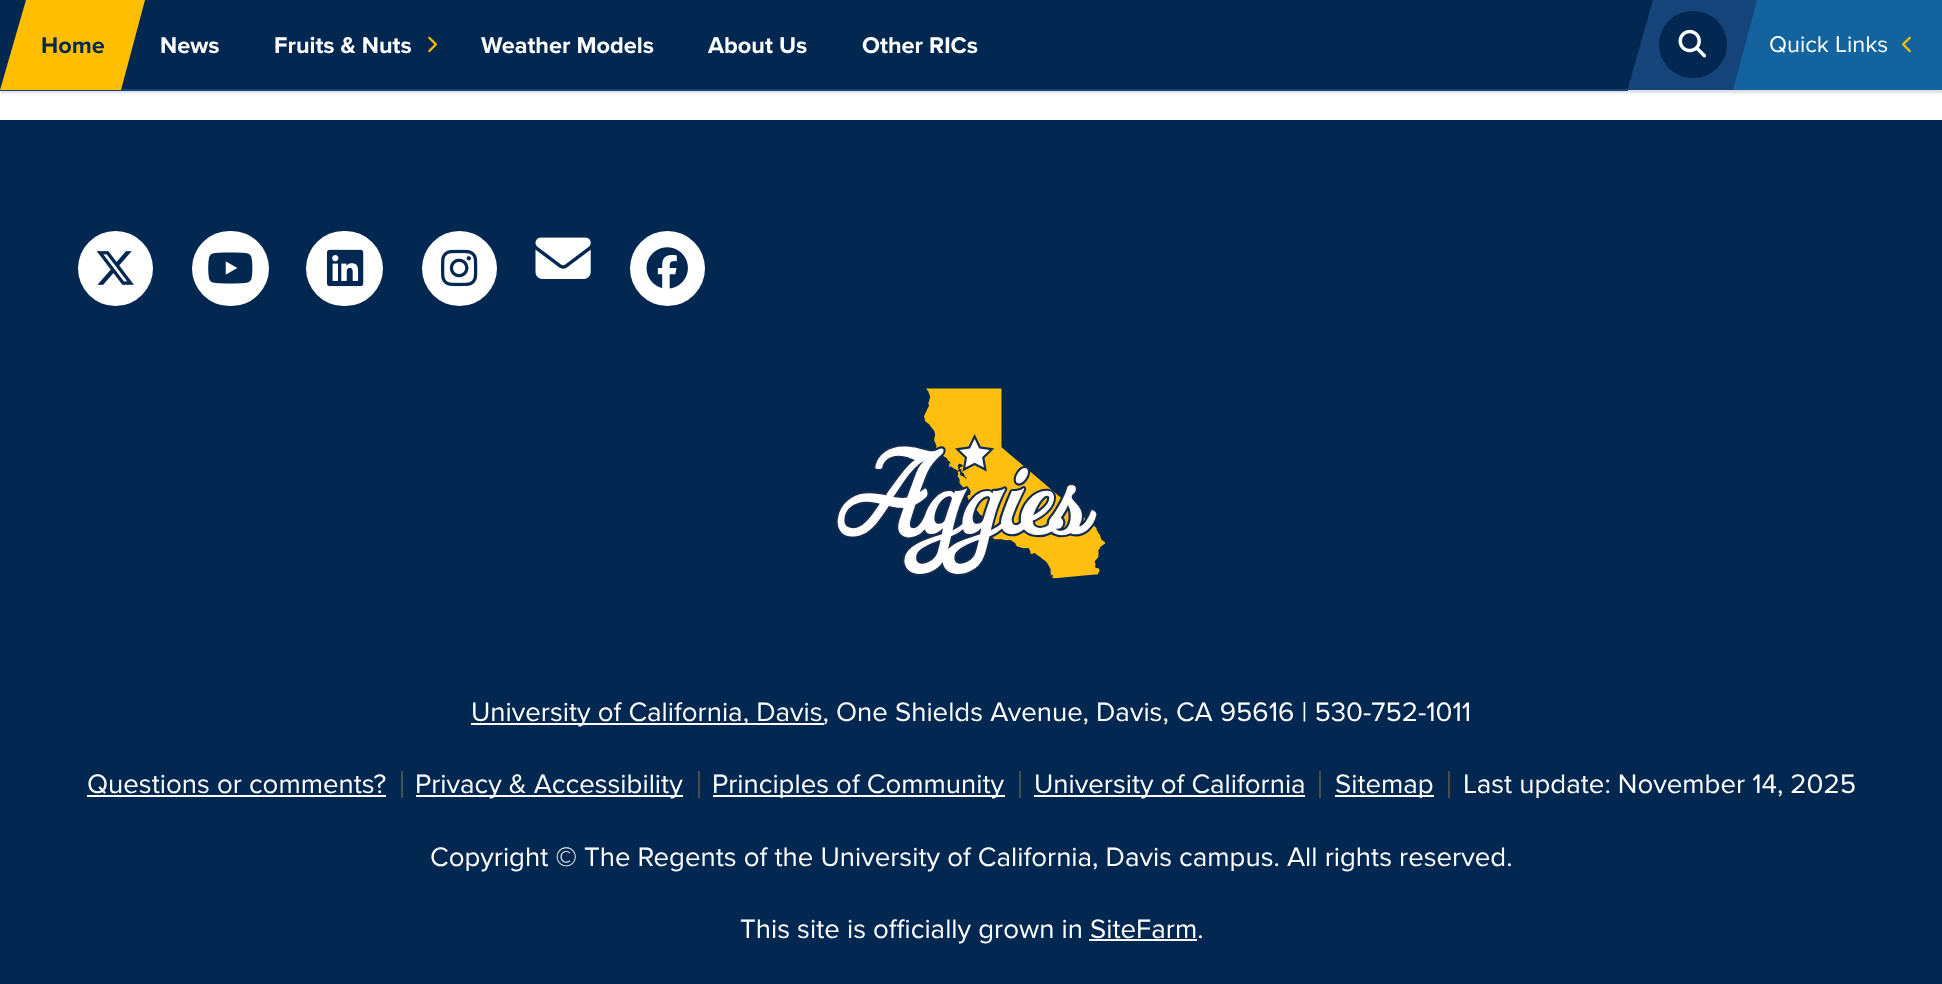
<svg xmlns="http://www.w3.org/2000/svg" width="1942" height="984">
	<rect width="100%" height="100%" fill="#FFFFFF" />
	<rect x="0" y="3" width="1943" height="90" fill="#022851" fill-opacity="0.15" filter="blur(1px)" />
	<rect x="0" y="0" width="1653" height="89" fill="#022851" />
	<rect x="0" y="89" width="1628" height="2" fill="#14447A" />
	<rect x="27" y="0" width="92" height="90" fill="#FFBF00" />
	<path d="M26 0L0 90H27V0Z" fill="#FFBF00" />
	<text x="41" y="53" font-family="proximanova" font-size="23.5" font-weight="700" fill="#022851">Home</text>
	<path d="M119 0H145L121 90H119Z" fill="#FFBF00" />
	<g font-family="proximanova" font-size="23.5" font-weight="700" fill="#FFFFFF">
		<text x="160" y="53">News</text>
		<text x="274" y="53">Fruits &amp; Nuts</text>
	</g>
	<image x="428" y="36" width="9" height="17" href="assets/img1.png" />
	<g font-family="proximanova" font-size="23.5" font-weight="700" fill="#FFFFFF">
		<text x="481" y="53">Weather Models</text>
		<text x="708" y="53">About Us</text>
		<text x="862" y="53">Other RICs</text>
	</g>
	<path d="M1753 0L1728 90H1755V0Z" fill="#13639E" />
	<rect x="1655" y="0" width="75" height="90" fill="#14447A" />
	<path d="M1653 0L1628 88V90H1655V0Z" fill="#14447A" />
	<rect x="1659" y="11" width="68" height="67" rx="33.5" fill="#022851" />
	<image x="1678" y="29" width="29" height="29" href="assets/img2.png" />
	<rect x="1755" y="0" width="187" height="90" fill="#13639E" />
	<path d="M1730 0H1757L1733 90H1730Z" fill="#14447A" />
	<text x="1769" y="52" font-family="proximanova" font-size="23.5" fill="#FFFFFF">Quick Links</text>
	<image x="1902" y="36" width="9" height="17" href="assets/img3.png" />
	<rect x="0" y="120" width="1942" height="864" fill="#022851" />
	<circle cx="115.5" cy="268.5" r="37.5" fill="#FFFFFF" />
	<image x="96" y="251" width="38" height="34" href="assets/img4.png" />
	<rect x="192" y="231" width="77" height="75" rx="37.5" fill="#FFFFFF" />
	<image x="208" y="252" width="45" height="32" href="assets/img5.png" />
	<rect x="306" y="231" width="77" height="75" rx="37.5" fill="#FFFFFF" />
	<image x="327" y="249" width="37" height="38" href="assets/img6.png" />
	<circle cx="459.5" cy="268.5" r="37.5" fill="#FFFFFF" />
	<image x="441" y="249" width="37" height="38" href="assets/img7.png" />
	<image x="535" y="237" width="56" height="42" href="assets/img8.png" />
	<circle cx="667.5" cy="268.5" r="37.5" fill="#FFFFFF" />
	<image x="646" y="247" width="42" height="42" href="assets/img9.png" />
	<image x="836" y="388" width="270" height="191" href="assets/img10.png" />
	<rect x="471" y="723" width="353" height="2" fill="#FFFFFF" />
	<text x="471" y="721" font-family="proximanova" font-size="27.6" fill="#FFFFFF">University of California, Davis, One Shields Avenue, Davis, CA 95616 | 530-752-1011</text>
	<rect x="401" y="771" width="2" height="27" fill="#4C4C4C" />
	<text x="87" y="793" font-family="proximanova" font-size="27.6" fill="#FFFFFF">Questions or comments?</text>
	<rect x="87" y="795" width="299" height="2" fill="#FFFFFF" />
	<rect x="698" y="771" width="2" height="27" fill="#4C4C4C" />
	<rect x="416" y="795" width="267" height="2" fill="#FFFFFF" />
	<text x="415" y="793" font-family="proximanova" font-size="27.6" fill="#FFFFFF">Privacy &amp; Accessibility</text>
	<rect x="1019" y="771" width="2" height="27" fill="#4C4C4C" />
	<rect x="713" y="795" width="292" height="2" fill="#FFFFFF" />
	<text x="712" y="793" font-family="proximanova" font-size="27.6" fill="#FFFFFF">Principles of Community</text>
	<rect x="1319" y="771" width="2" height="27" fill="#4C4C4C" />
	<rect x="1034" y="795" width="271" height="2" fill="#FFFFFF" />
	<text x="1034" y="793" font-family="proximanova" font-size="27.6" fill="#FFFFFF">University of California</text>
	<rect x="1448" y="771" width="2" height="27" fill="#4C4C4C" />
	<rect x="1335" y="795" width="99" height="2" fill="#FFFFFF" />
	<g font-family="proximanova" font-size="27.6" fill="#FFFFFF">
		<text x="1335" y="793">Sitemap</text>
		<text x="1463" y="793">Last update: November 14, 2025</text>
		<text x="430" y="866">Copyright © The Regents of the University of California, Davis campus. All rights reserved.</text>
		<text x="740" y="938">This site is officially grown in SiteFarm.</text>
	</g>
	<rect x="1089" y="939" width="108" height="2" fill="#FFFFFF" />
</svg>
